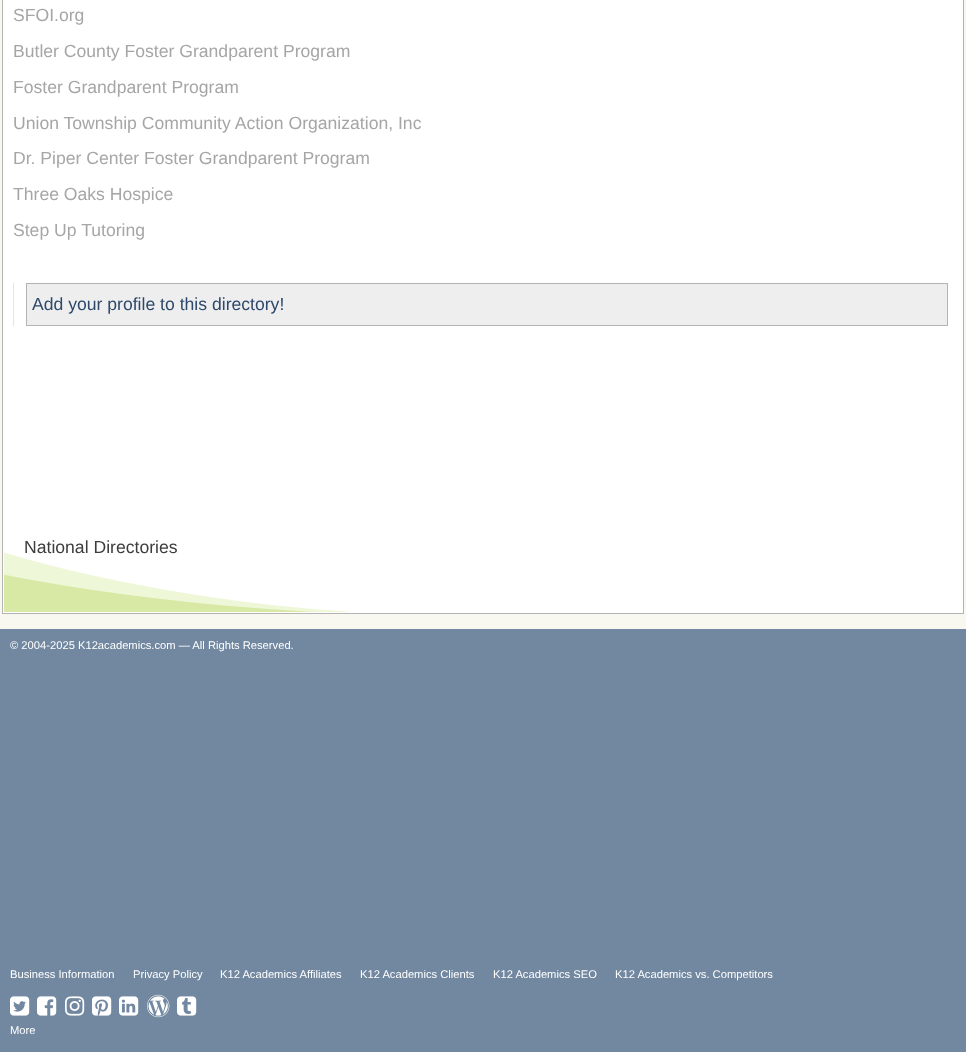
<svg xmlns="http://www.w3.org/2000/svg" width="966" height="1052">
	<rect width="100%" height="100%" fill="#F8F8F1" />
	<rect x="0" y="629" width="966" height="423" fill="#7288A0" />
	<rect x="3" y="0" width="960" height="613" fill="#FFFFFF" />
	<image x="4" y="552" width="348" height="60" href="assets/img1.png" />
	<rect x="2.5" y="-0.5" width="961" height="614" fill="none" stroke="#B3B3B3" />
	<g font-family="Liberation Sans" font-size="17.6" fill="#A6A6A6">
		<text x="13" y="21">SFOI.org</text>
		<text x="13" y="57">Butler County Foster Grandparent Program</text>
		<text x="13" y="93">Foster Grandparent Program</text>
		<text x="13" y="129">Union Township Community Action Organization, Inc</text>
		<text x="13" y="164">Dr. Piper Center Foster Grandparent Program</text>
		<text x="13" y="200">Three Oaks Hospice</text>
		<text x="13" y="236">Step Up Tutoring</text>
	</g>
	<rect x="13" y="283" width="1" height="43" fill="#E5E5E5" />
	<rect x="26.5" y="283.5" width="921" height="42" fill="#EEEEEE" stroke="#B3B3B3" />
	<text x="32" y="310" font-family="Liberation Sans" font-size="17.6" fill="#2E486B">Add your profile to this directory!</text>
	<text x="24" y="553" font-family="Liberation Sans" font-size="17.6" fill="#3D3D3D">National Directories</text>
	<g font-family="Liberation Sans" font-size="11.2" fill="#FFFFFF">
		<text x="10" y="649">© 2004-2025 K12academics.com — All Rights Reserved.</text>
		<text x="10" y="978">Business Information</text>
		<text x="133" y="978">Privacy Policy</text>
		<text x="220" y="978">K12 Academics Affiliates</text>
		<text x="360" y="978">K12 Academics Clients</text>
		<text x="493" y="978">K12 Academics SEO</text>
		<text x="615" y="978">K12 Academics vs. Competitors</text>
	</g>
	<image x="10" y="996" width="20" height="20" href="assets/img2.png" />
	<image x="37" y="996" width="20" height="20" href="assets/img3.png" />
	<image x="65" y="996" width="20" height="20" href="assets/img4.png" />
	<image x="92" y="996" width="20" height="20" href="assets/img5.png" />
	<image x="119" y="996" width="20" height="20" href="assets/img6.png" />
	<image x="147" y="994" width="23" height="24" href="assets/img7.png" />
	<image x="177" y="996" width="20" height="20" href="assets/img8.png" />
	<text x="10" y="1034" font-family="Liberation Sans" font-size="11.2" fill="#FFFFFF">More</text>
</svg>
